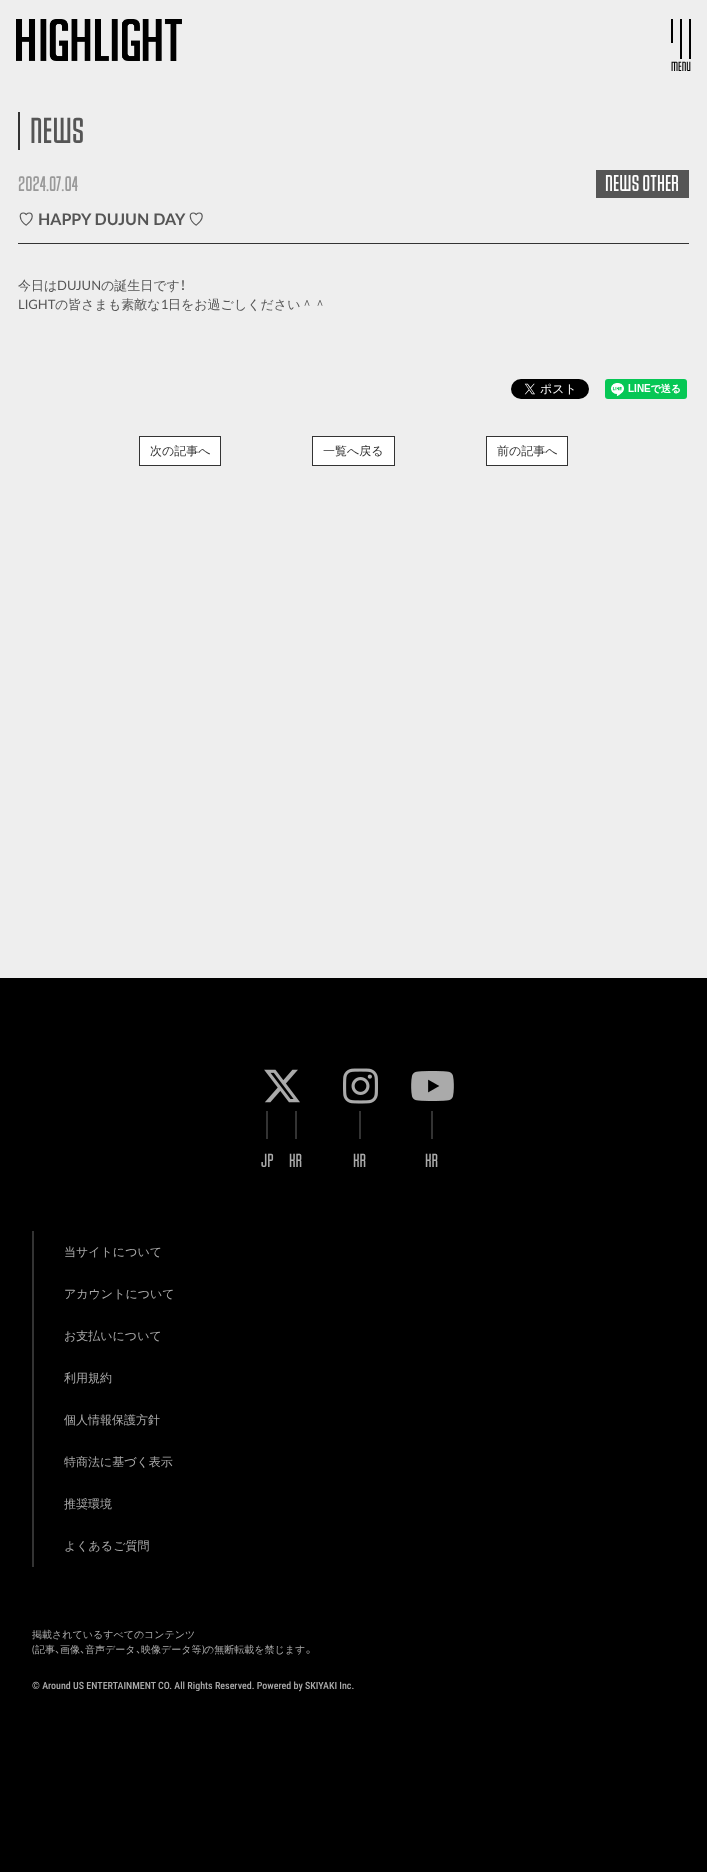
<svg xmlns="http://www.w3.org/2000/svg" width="707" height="1872">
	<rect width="100%" height="100%" fill="#EEEEEE" />
	<image x="16" y="19" width="166" height="42" href="assets/img1.png" />
	<rect x="671" y="19" width="2" height="24" fill="#000000" />
	<rect x="680" y="19" width="2" height="40" fill="#000000" />
	<rect x="689" y="19" width="2" height="40" fill="#000000" />
	<text x="671" y="71" font-family="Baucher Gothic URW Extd" font-size="14" font-weight="700" fill="#000000">MENU</text>
	<rect x="18" y="112" width="2" height="38" fill="#333333" />
	<text x="30" y="143" font-family="Baucher Gothic URW Extd" font-size="38" font-weight="700" fill="#555555">NEWS</text>
	<text x="18" y="191" font-family="Baucher Gothic URW Extd" font-size="22" font-weight="700" fill="#999999">2024.07.04</text>
	<rect x="596" y="170" width="93" height="28" fill="#555555" />
	<text x="605" y="191" font-family="Baucher Gothic URW Extd" font-size="24" font-weight="700" fill="#FFFFFF">NEWS OTHER</text>
	<rect x="18" y="243" width="671" height="1" fill="#333333" />
	<text x="18" y="225" font-family="WenQuanYi Zen Hei" font-size="16" font-weight="700" fill="#555555">♡</text>
	<text x="38" y="225" font-family="Lato" font-size="16" font-weight="700" fill="#555555">HAPPY DUJUN DAY</text>
	<text x="188" y="225" font-family="WenQuanYi Zen Hei" font-size="16" font-weight="700" fill="#555555">♡</text>
	<text x="18" y="290" font-family="WenQuanYi Zen Hei" font-size="13" font-weight="500" fill="#555555">今日は</text>
	<text x="57" y="290" font-family="Lato" font-size="13" fill="#555555">DUJUN</text>
	<text x="101" y="290" font-family="WenQuanYi Zen Hei" font-size="13" font-weight="500" fill="#555555">の誕生日です</text>
	<text x="180" y="290" font-family="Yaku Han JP" font-size="13" fill="#555555">！</text>
	<text x="18" y="309" font-family="Lato" font-size="13" fill="#555555">LIGHT</text>
	<text x="55" y="309" font-family="WenQuanYi Zen Hei" font-size="13" font-weight="500" fill="#555555">の皆さまも素敵な</text>
	<text x="161" y="309" font-family="Lato" font-size="13" fill="#555555">1</text>
	<text x="168" y="309" font-family="WenQuanYi Zen Hei" font-size="13" font-weight="500" fill="#555555">日をお過ごしください＾＾</text>
	<image x="511" y="379" width="78" height="20" href="assets/img2.png" />
	<image x="605" y="379" width="82" height="20" href="assets/img3.png" />
	<rect x="139.5" y="436.5" width="81" height="29" fill="#FFFFFF" stroke="#333333" />
	<text x="150" y="455" font-family="WenQuanYi Zen Hei" font-size="12" font-weight="500" fill="#333333">次の記事へ</text>
	<rect x="312.5" y="436.5" width="82" height="29" fill="#FFFFFF" stroke="#333333" />
	<text x="323" y="455" font-family="WenQuanYi Zen Hei" font-size="12" font-weight="500" fill="#333333">一覧へ戻る</text>
	<rect x="486.5" y="436.5" width="81" height="29" fill="#FFFFFF" stroke="#333333" />
	<text x="497" y="455" font-family="WenQuanYi Zen Hei" font-size="12" font-weight="500" fill="#333333">前の記事へ</text>
	<rect x="0" y="978" width="707" height="894" fill="#000000" />
	<image x="264" y="1069" width="36" height="34" href="assets/img4.png" />
	<rect x="266" y="1111" width="2" height="28" fill="#333333" />
	<text x="261" y="1167" font-family="Baucher Gothic URW Extd" font-size="20" font-weight="700" fill="#AAAAAA">JP</text>
	<rect x="295" y="1111" width="2" height="28" fill="#333333" />
	<text x="289" y="1167" font-family="Baucher Gothic URW Extd" font-size="20" font-weight="700" fill="#AAAAAA">KR</text>
	<image x="343" y="1068" width="35" height="36" href="assets/img5.png" />
	<rect x="359" y="1111" width="2" height="28" fill="#333333" />
	<text x="353" y="1167" font-family="Baucher Gothic URW Extd" font-size="20" font-weight="700" fill="#AAAAAA">KR</text>
	<image x="411" y="1071" width="43" height="30" href="assets/img6.png" />
	<rect x="431" y="1111" width="2" height="28" fill="#333333" />
	<text x="425" y="1167" font-family="Baucher Gothic URW Extd" font-size="20" font-weight="700" fill="#AAAAAA">KR</text>
	<rect x="32" y="1231" width="2" height="336" fill="#333333" />
	<g font-family="WenQuanYi Zen Hei" font-size="12" font-weight="500" fill="#AAAAAA">
		<text x="64" y="1256">当サイトについて</text>
		<text x="64" y="1298">アカウントについて</text>
		<text x="64" y="1340">お支払いについて</text>
		<text x="64" y="1382">利用規約</text>
		<text x="64" y="1424">個人情報保護方針</text>
		<text x="64" y="1466">特商法に基づく表示</text>
		<text x="64" y="1508">推奨環境</text>
		<text x="64" y="1550">よくあるご質問</text>
	</g>
	<text x="32" y="1638" font-family="WenQuanYi Zen Hei" font-size="10" font-weight="500" fill="#AAAAAA">掲載されているすべてのコンテンツ</text>
	<text x="32" y="1653" font-family="Lato" font-size="10" fill="#AAAAAA">(</text>
	<text x="35" y="1653" font-family="WenQuanYi Zen Hei" font-size="10" font-weight="500" fill="#AAAAAA">記事</text>
	<text x="55" y="1653" font-family="Yaku Han JP" font-size="10" fill="#AAAAAA">、</text>
	<text x="60" y="1653" font-family="WenQuanYi Zen Hei" font-size="10" font-weight="500" fill="#AAAAAA">画像</text>
	<text x="80" y="1653" font-family="Yaku Han JP" font-size="10" fill="#AAAAAA">、</text>
	<text x="85" y="1653" font-family="WenQuanYi Zen Hei" font-size="10" font-weight="500" fill="#AAAAAA">音声データ</text>
	<text x="136" y="1653" font-family="Yaku Han JP" font-size="10" fill="#AAAAAA">、</text>
	<text x="141" y="1653" font-family="WenQuanYi Zen Hei" font-size="10" font-weight="500" fill="#AAAAAA">映像データ等</text>
	<text x="202" y="1653" font-family="Lato" font-size="10" fill="#AAAAAA">)</text>
	<text x="204" y="1653" font-family="WenQuanYi Zen Hei" font-size="10" font-weight="500" fill="#AAAAAA">の無断転載を禁じます</text>
	<text x="306" y="1653" font-family="Yaku Han JP" font-size="10" fill="#AAAAAA">。</text>
	<text x="32" y="1689" font-family="Roboto Condensed" font-size="10" font-weight="500" fill="#AAAAAA">© Around US ENTERTAINMENT CO. All Rights Reserved. Powered by SKIYAKI Inc.</text>
</svg>
